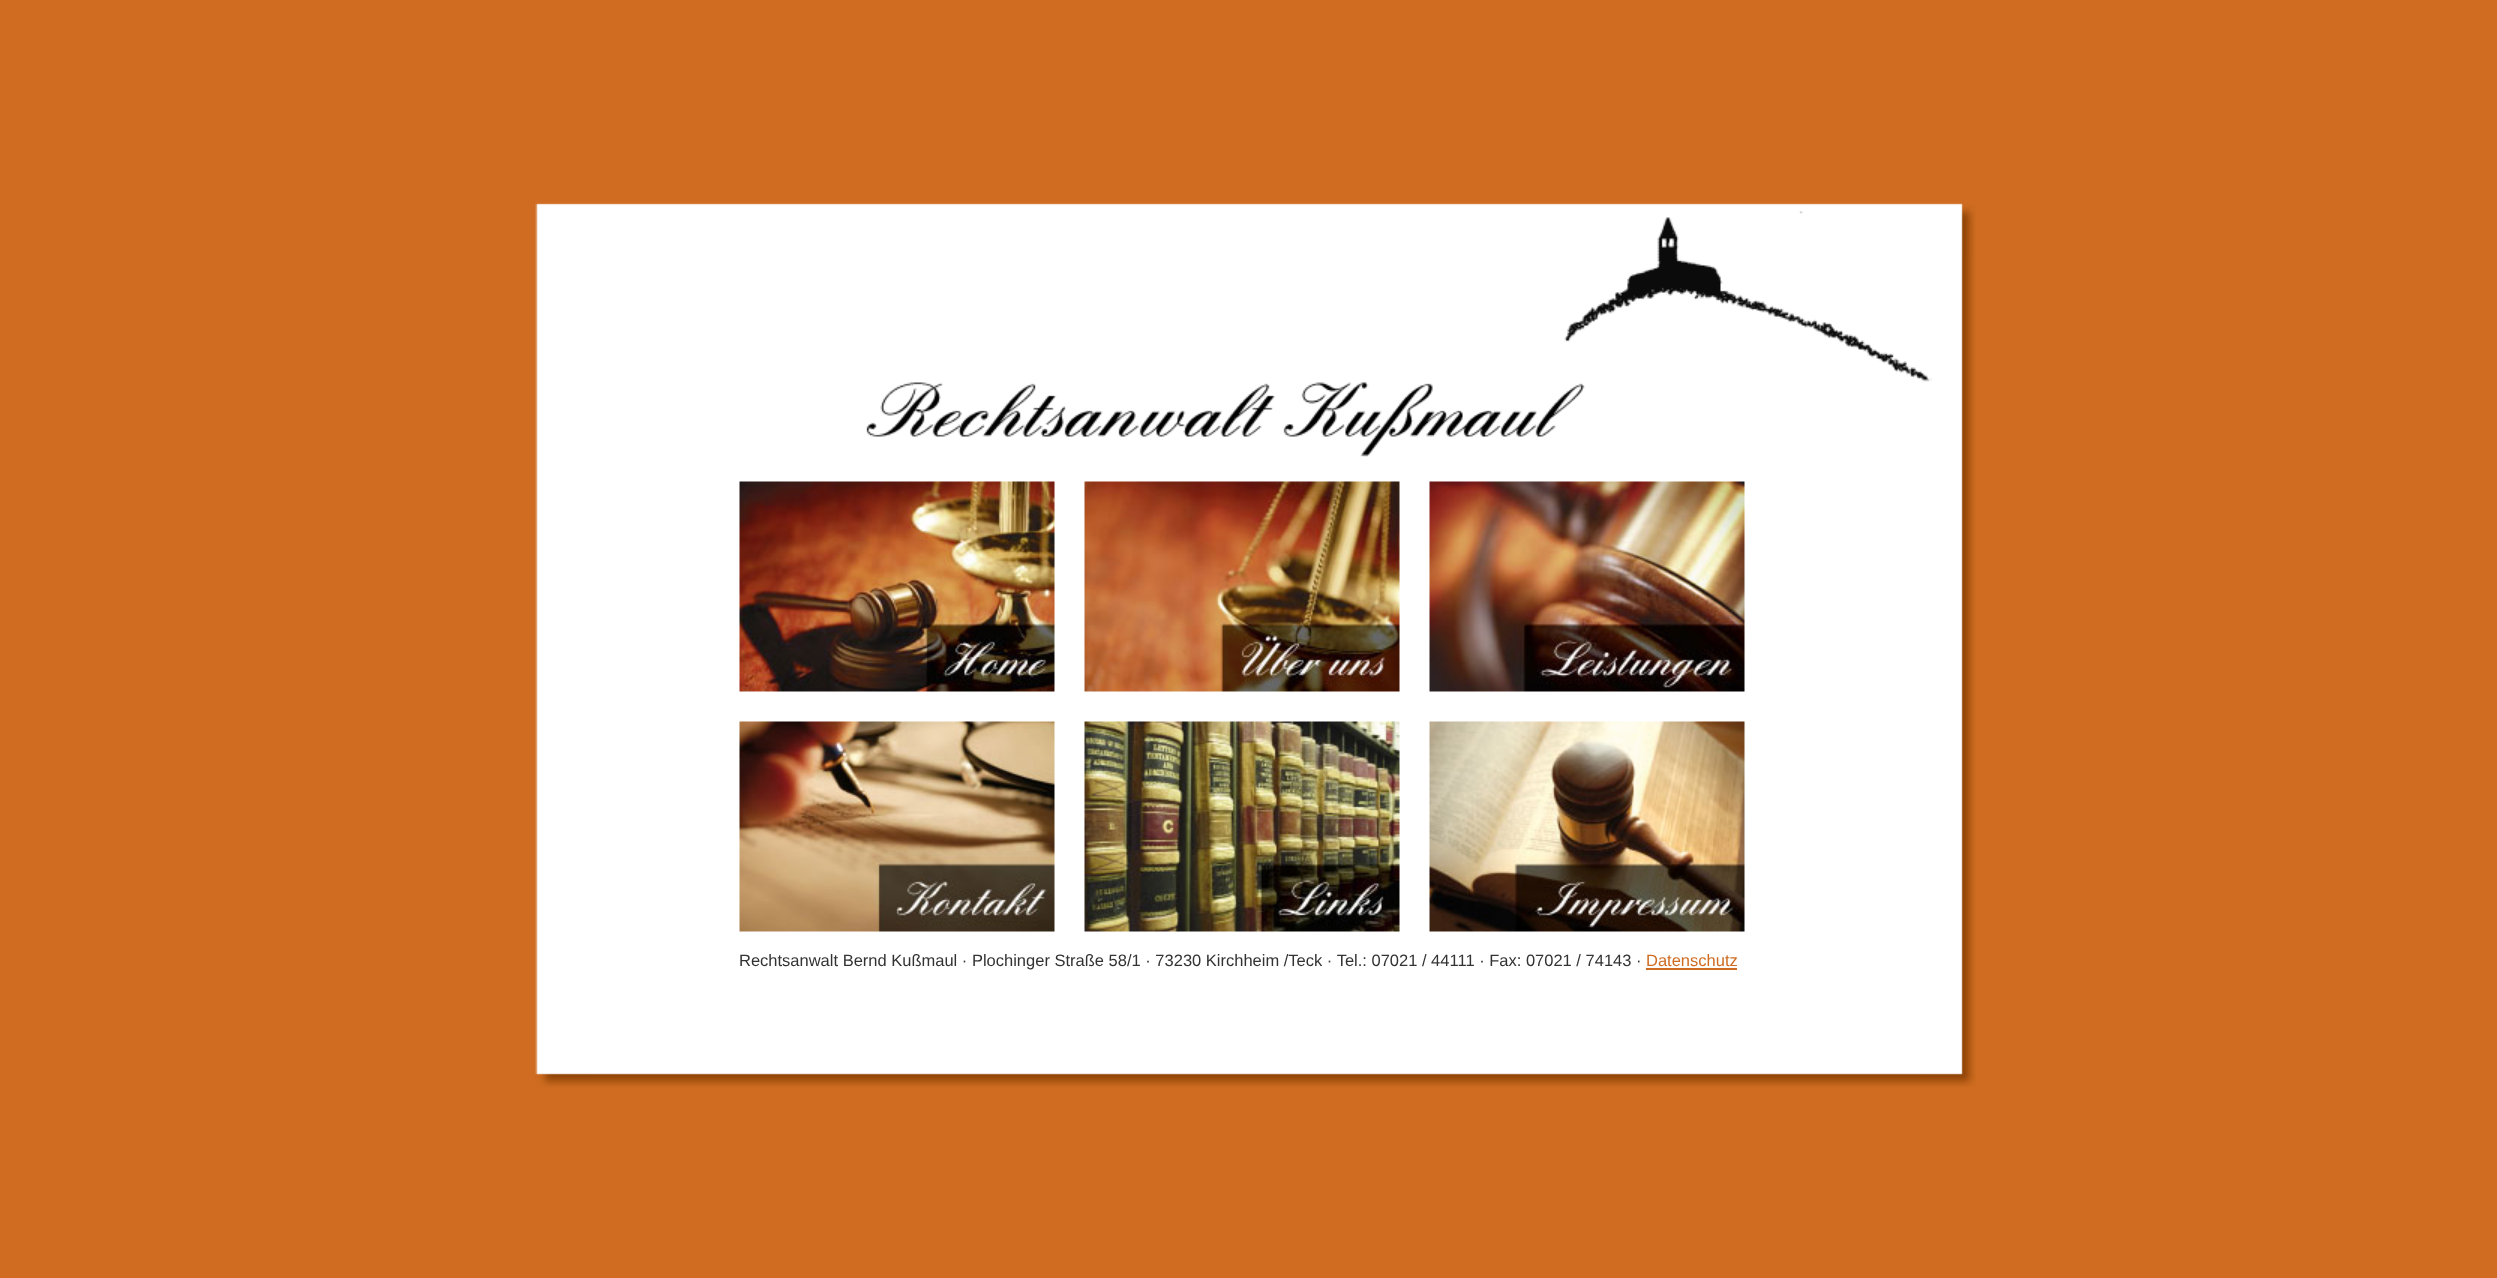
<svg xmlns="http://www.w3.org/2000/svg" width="2497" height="1278">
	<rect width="100%" height="100%" fill="#CF6C21" />
	<image x="535" y="203" width="1441" height="884" href="assets/img1.png" />
	<image x="1564" y="211" width="368" height="171" href="assets/img2.png" />
	<image x="866" y="382" width="719" height="75" href="assets/img3.png" />
	<image x="739" y="481" width="316" height="211" href="assets/img4.png" />
	<image x="1084" y="481" width="316" height="211" href="assets/img5.png" />
	<image x="1429" y="481" width="316" height="211" href="assets/img6.png" />
	<image x="739" y="721" width="316" height="211" href="assets/img7.png" />
	<image x="1084" y="721" width="316" height="211" href="assets/img8.png" />
	<image x="1429" y="721" width="316" height="211" href="assets/img9.png" />
	<text x="739" y="966" font-family="Liberation Sans" font-size="16.5" fill="#333333">Rechtsanwalt Bernd Kußmaul · Plochinger Straße 58/1 · 73230 Kirchheim /Teck · Tel.: 07021 / 44111 · Fax: 07021 / 74143 ·</text>
	<text x="1646" y="966" font-family="Liberation Sans" font-size="16.5" fill="#CF6C21">Datenschutz</text>
	<rect x="1646" y="968" width="91" height="2" fill="#CF6C21" />
</svg>
